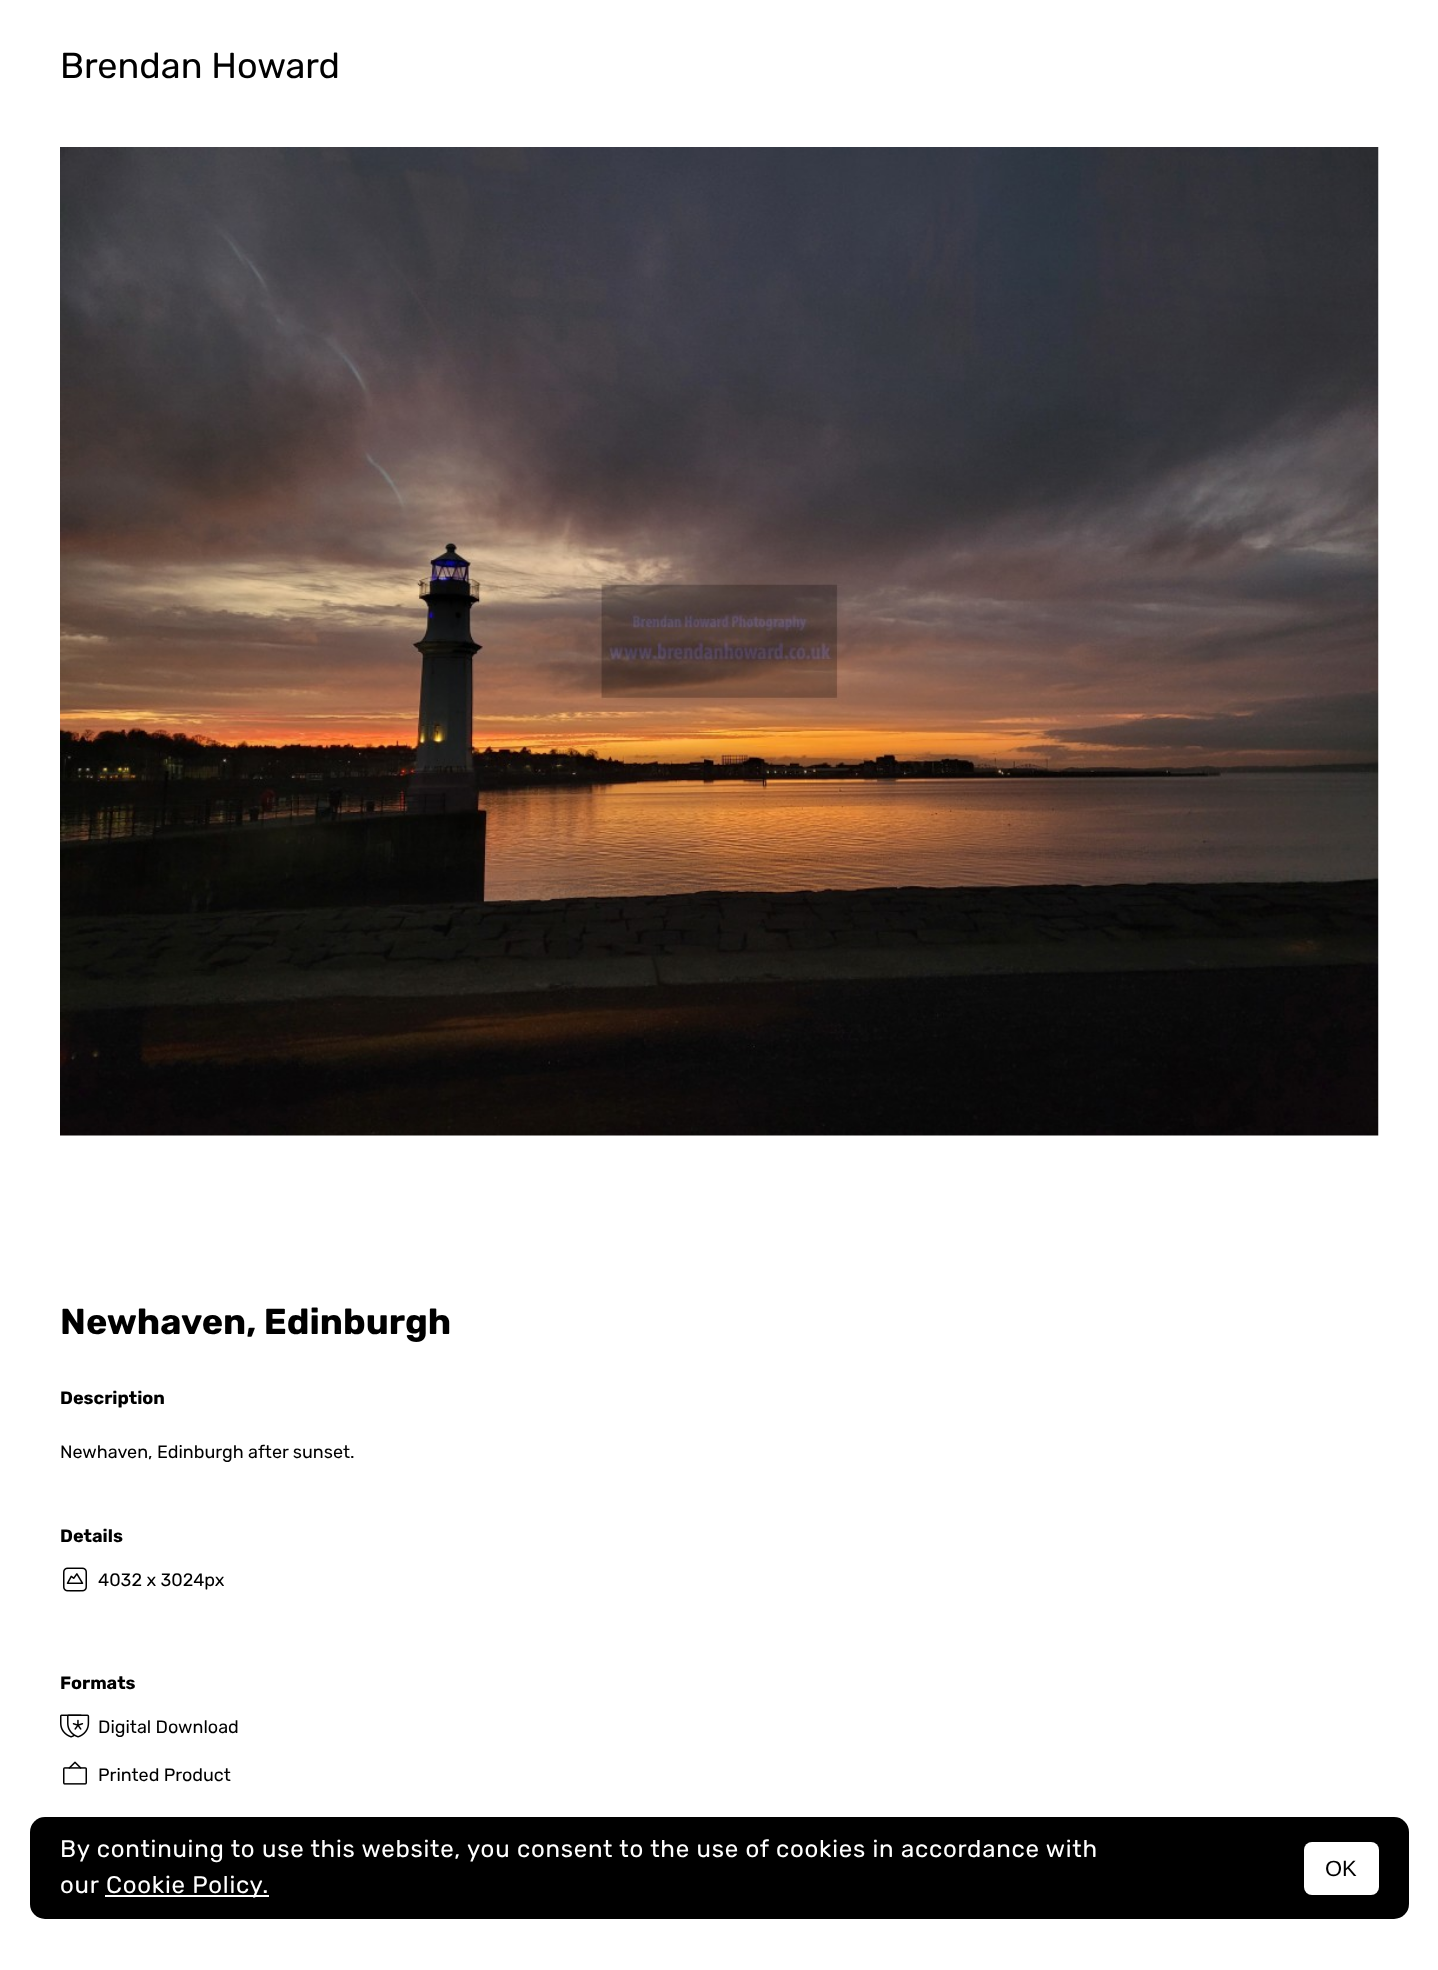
<svg xmlns="http://www.w3.org/2000/svg" width="1438" height="1970">
	<rect width="100%" height="100%" fill="#FFFFFF" />
	<text x="60" y="78" font-family="Rubik" font-size="36" fill="#000000">Brendan Howard</text>
	<image x="60" y="147" width="1319" height="989" href="assets/img1.png" />
	<text x="60" y="1334" font-family="Rubik" font-size="36" font-weight="700" fill="#000000">Newhaven, Edinburgh</text>
	<text x="60" y="1404" font-family="Rubik" font-size="18" font-weight="700" fill="#000000">Description</text>
	<text x="60" y="1458" font-family="Rubik" font-size="18" fill="#000000">Newhaven, Edinburgh after sunset.</text>
	<text x="60" y="1542" font-family="Rubik" font-size="18" font-weight="700" fill="#000000">Details</text>
	<image x="63" y="1567" width="24" height="25" href="assets/img2.png" />
	<text x="98" y="1586" font-family="Rubik" font-size="18" fill="#000000">4032 x 3024px</text>
	<text x="60" y="1689" font-family="Rubik" font-size="18" font-weight="700" fill="#000000">Formats</text>
	<image x="60" y="1714" width="30" height="24" href="assets/img3.png" />
	<text x="98" y="1733" font-family="Rubik" font-size="18" fill="#000000">Digital Download</text>
	<image x="63" y="1761" width="24" height="24" href="assets/img4.png" />
	<text x="98" y="1781" font-family="Rubik" font-size="18" fill="#000000">Printed Product</text>
	<rect x="30" y="1817" width="1379" height="102" rx="15" fill="#000000" />
	<g font-family="Rubik" font-size="24" letter-spacing="0.75" fill="#FFFFFF">
		<text x="60" y="1857">By continuing to use this website, you consent to the use of cookies in accordance with</text>
		<text x="60" y="1893">our</text>
	</g>
	<rect x="105" y="1895" width="164" height="2" fill="#FFFFFF" />
	<text x="106" y="1893" font-family="Rubik" font-size="24" letter-spacing="0.75" fill="#FFFFFF">Cookie Policy.</text>
	<rect x="1304" y="1842" width="75" height="53" rx="8" fill="#FFFFFF" />
	<text x="1325" y="1876" font-family="Liberation Sans" font-size="22" fill="#000000">OK</text>
</svg>
